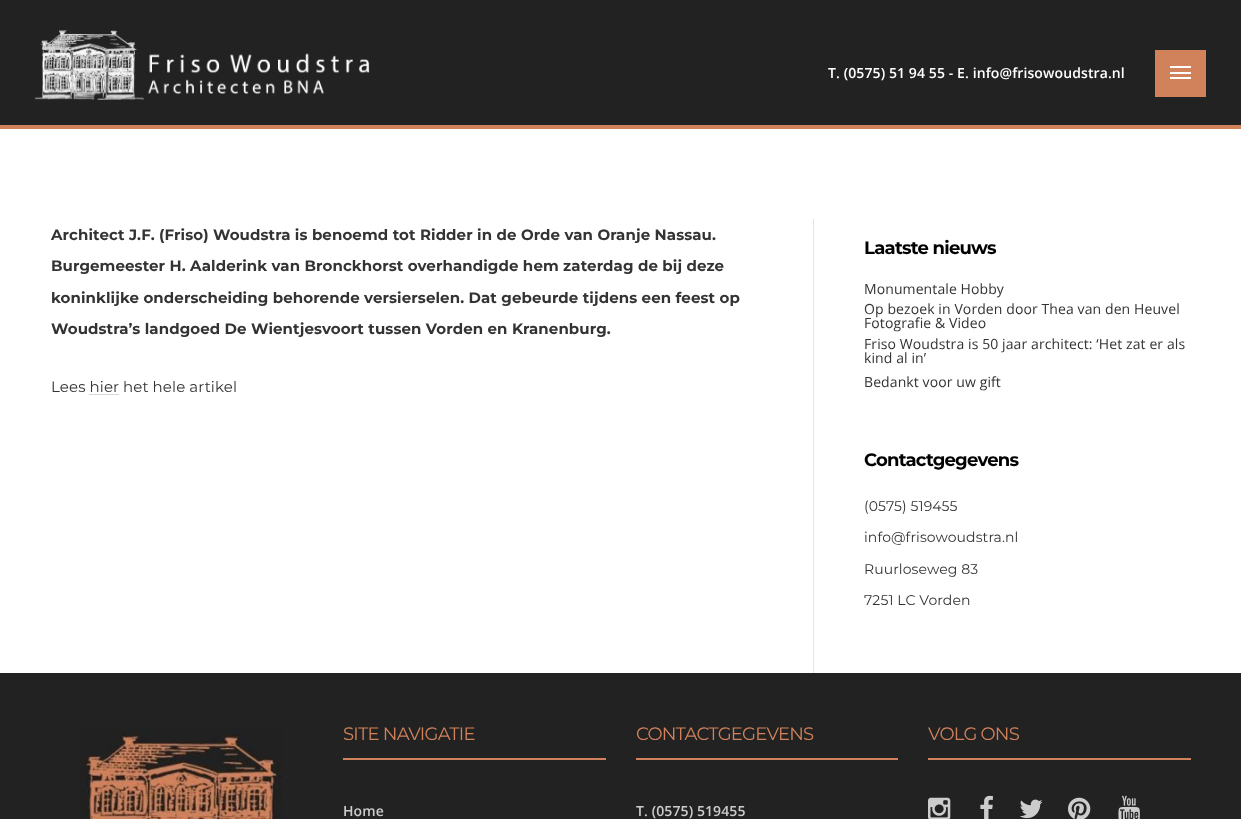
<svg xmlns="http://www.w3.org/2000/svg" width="1241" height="819">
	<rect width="100%" height="100%" fill="#FFFFFF" />
	<rect x="0" y="0" width="1241" height="125" fill="#222222" />
	<rect x="0" y="125" width="1241" height="4" fill="#D1825B" />
	<image x="35" y="30" width="335" height="74" href="assets/img1.png" />
	<text x="828" y="78" font-family="Open Sans" font-size="14" font-weight="600" letter-spacing="0.1" fill="#FFFFFF">T. (0575) 51 94 55 - E. info@frisowoudstra.nl</text>
	<rect x="1155" y="50" width="51" height="47" fill="#D1825B" />
	<rect x="1170" y="66" width="21" height="2" fill="#FFFFFF" />
	<rect x="1170" y="72" width="21" height="2" fill="#FFFFFF" />
	<rect x="1170" y="77" width="21" height="2" fill="#FFFFFF" />
	<g font-family="Montserrat" font-size="15" font-weight="700" letter-spacing="0.1" fill="#333333">
		<text x="51" y="240">Architect J.F. (Friso) Woudstra is benoemd tot Ridder in de Orde van Oranje Nassau.</text>
		<text x="51" y="271">Burgemeester H. Aalderink van Bronckhorst overhandigde hem zaterdag de bij deze</text>
		<text x="51" y="303">koninklijke onderscheiding behorende versierselen. Dat gebeurde tijdens een feest op</text>
		<text x="51" y="334">Woudstra’s landgoed De Wientjesvoort tussen Vorden en Kranenburg.</text>
	</g>
	<g font-family="Montserrat" font-size="15" letter-spacing="0.1" fill="#333333">
		<text x="51" y="392">Lees hier</text>
		<text x="123" y="392">het hele artikel</text>
	</g>
	<rect x="89" y="394" width="30" height="1" fill="#D6D6D6" />
	<rect x="813" y="219" width="1" height="454" fill="#E4E4E4" />
	<text x="864" y="254" font-family="Montserrat" font-size="18" font-weight="700" letter-spacing="-0.75" fill="#000000">Laatste nieuws</text>
	<g font-family="Open Sans" font-size="14" letter-spacing="0.1" fill="#333333">
		<text x="864" y="294">Monumentale Hobby</text>
		<text x="864" y="314">Op bezoek in Vorden door Thea van den Heuvel</text>
		<text x="864" y="328">Fotografie &amp; Video</text>
		<text x="864" y="349">Friso Woudstra is 50 jaar architect: ‘Het zat er als</text>
		<text x="864" y="363">kind al in’</text>
		<text x="864" y="387">Bedankt voor uw gift</text>
	</g>
	<text x="864" y="466" font-family="Montserrat" font-size="18" font-weight="700" letter-spacing="-0.75" fill="#000000">Contactgegevens</text>
	<g font-family="Montserrat" font-size="14" letter-spacing="0.1" fill="#333333">
		<text x="864" y="511">(0575) 519455</text>
		<text x="864" y="542">info@frisowoudstra.nl</text>
		<text x="864" y="574">Ruurloseweg 83</text>
		<text x="864" y="605">7251 LC Vorden</text>
	</g>
	<rect x="0" y="673" width="1241" height="146" fill="#222222" />
	<image x="79" y="728" width="203" height="91" href="assets/img2.png" />
	<rect x="343" y="758" width="263" height="2" fill="#D1825B" />
	<text x="343" y="740" font-family="Montserrat" font-size="18" letter-spacing="-0.75" fill="#D1825B">SITE NAVIGATIE</text>
	<text x="343" y="816" font-family="Open Sans" font-size="14" font-weight="600" letter-spacing="0.1" fill="#CCCCCC">Home</text>
	<rect x="636" y="758" width="262" height="2" fill="#D1825B" />
	<text x="636" y="740" font-family="Montserrat" font-size="18" letter-spacing="-0.75" fill="#D1825B">CONTACTGEGEVENS</text>
	<text x="636" y="816" font-family="Open Sans" font-size="14" font-weight="600" letter-spacing="0.1" fill="#CCCCCC">T. (0575) 519455</text>
	<rect x="928" y="758" width="263" height="2" fill="#D1825B" />
	<text x="928" y="740" font-family="Montserrat" font-size="18" letter-spacing="-0.75" fill="#D1825B">VOLG ONS</text>
	<image x="928" y="797" width="23" height="22" href="assets/img3.png" />
	<image x="980" y="795" width="13" height="24" href="assets/img4.png" />
	<image x="1020" y="799" width="23" height="20" href="assets/img5.png" />
	<image x="1068" y="797" width="23" height="22" href="assets/img6.png" />
	<image x="1118" y="795" width="22" height="24" href="assets/img7.png" />
</svg>
